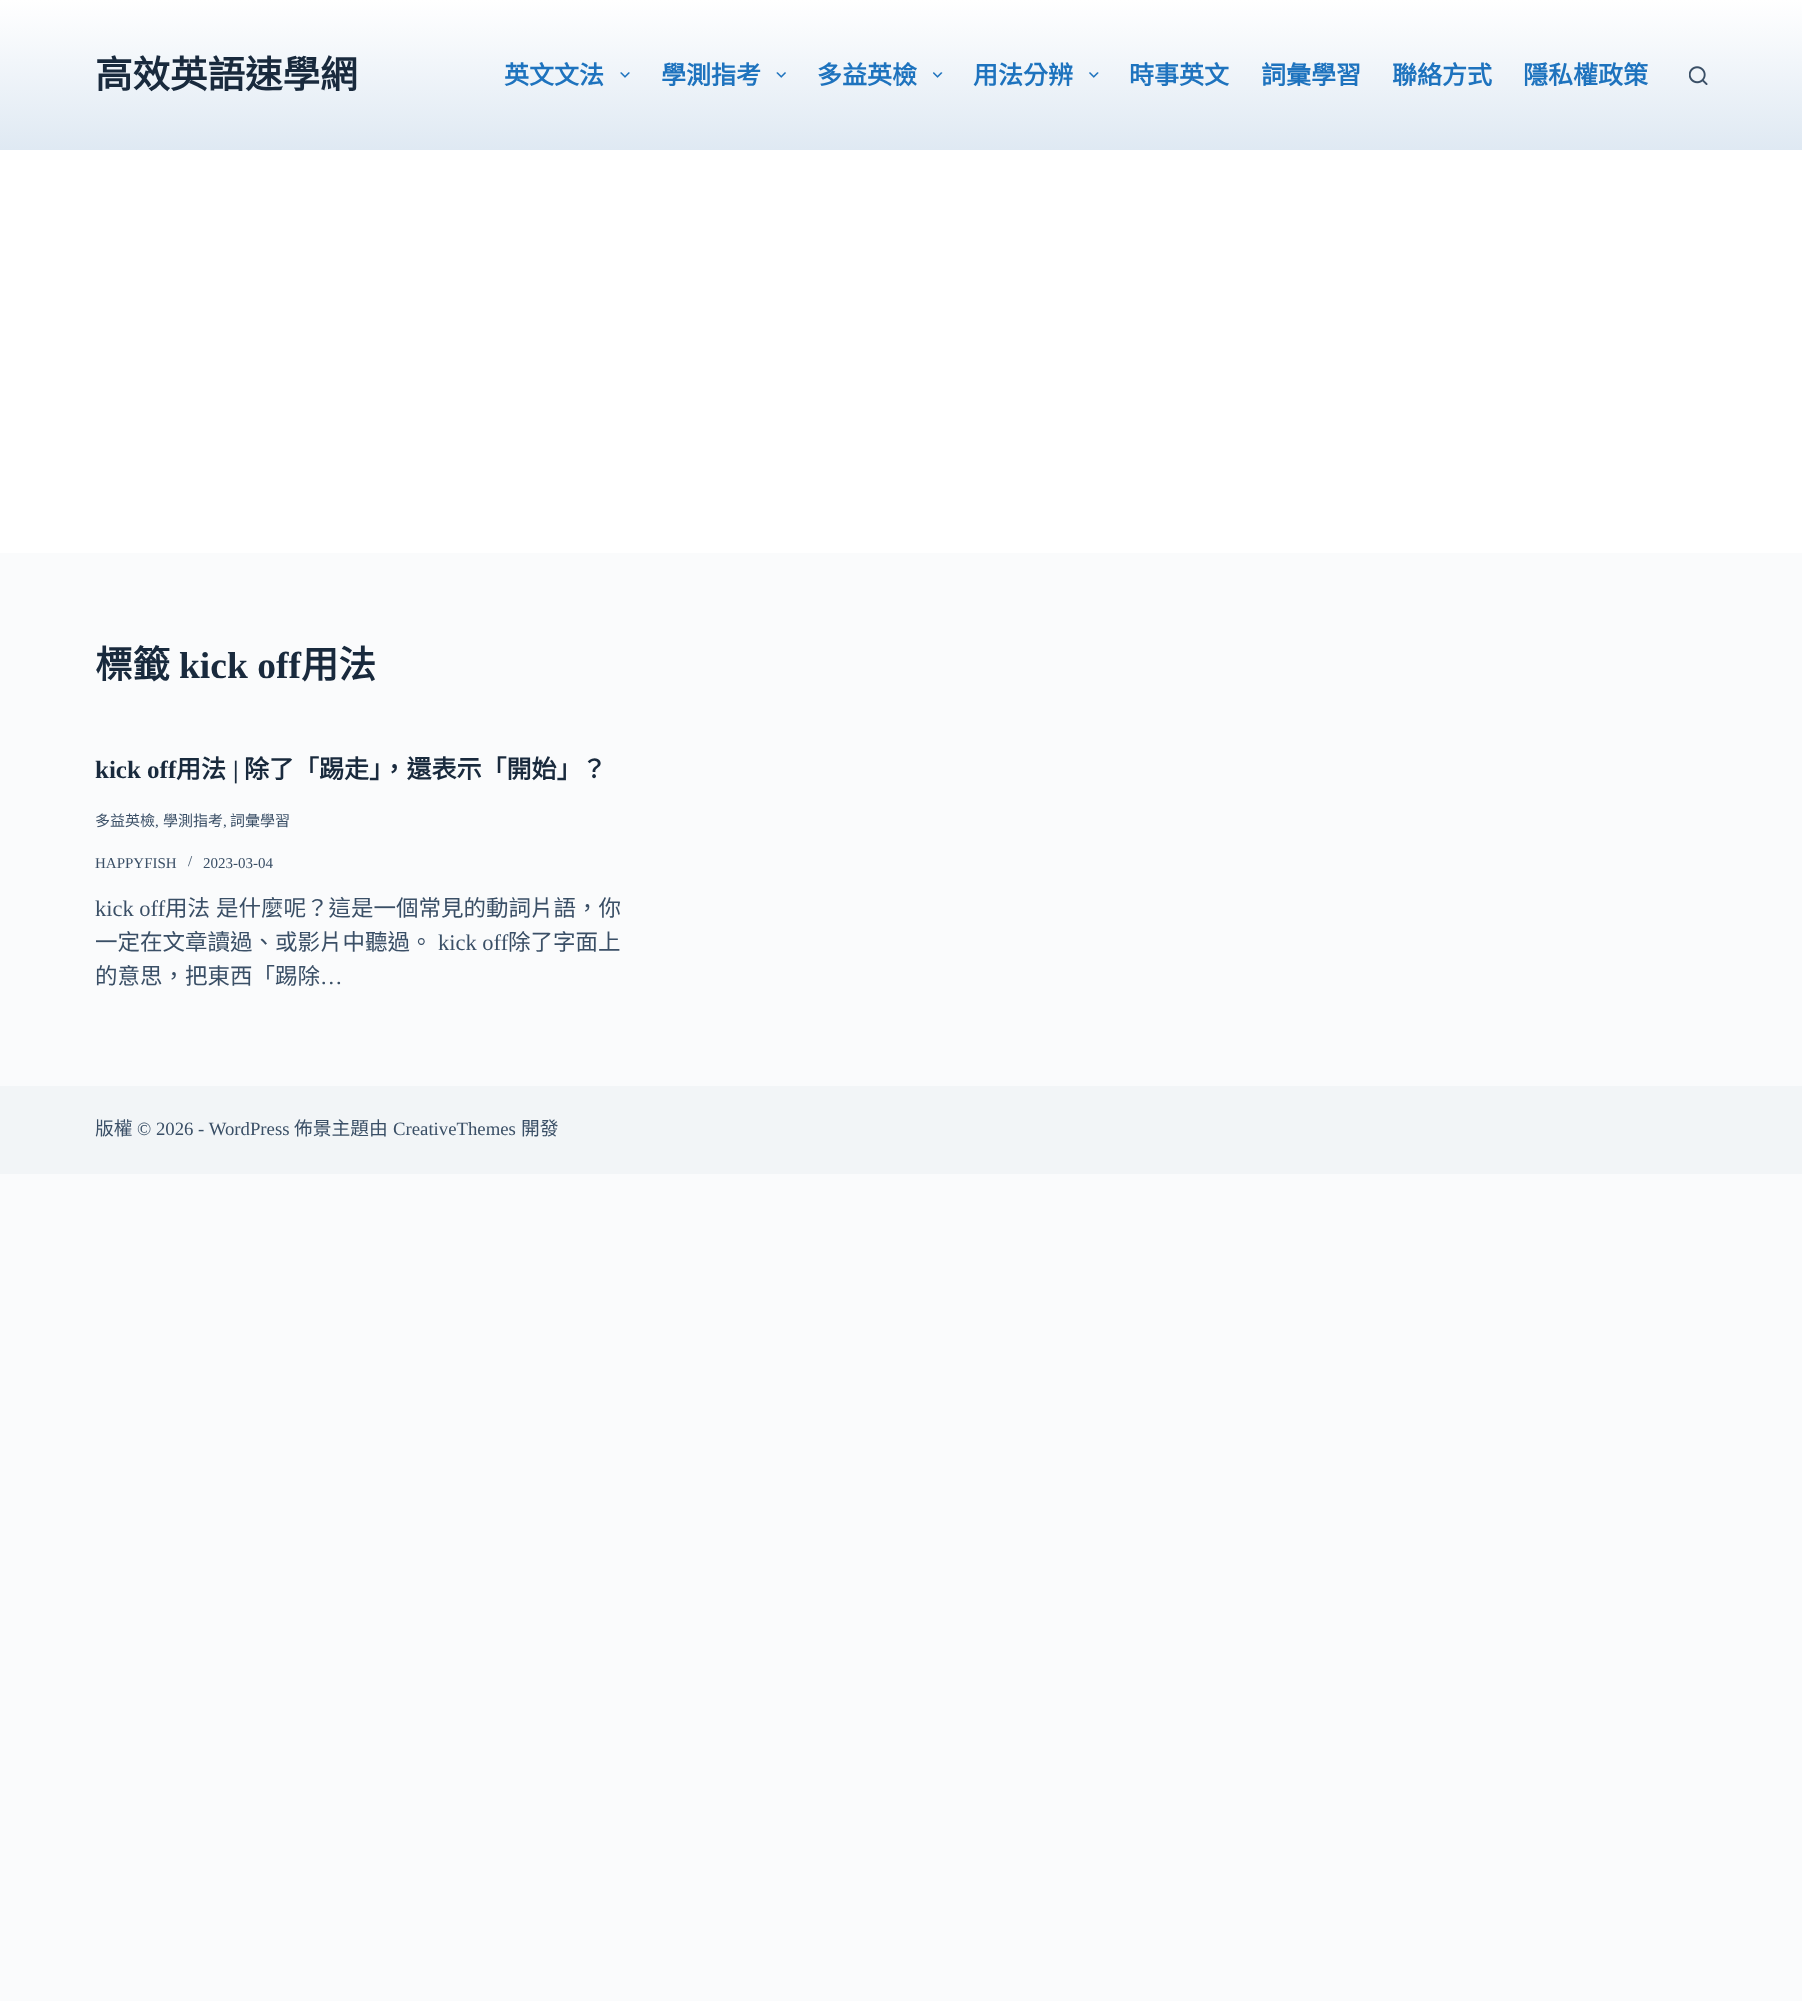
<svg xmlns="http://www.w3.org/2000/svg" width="1802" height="2001">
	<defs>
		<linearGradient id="g1" gradientUnits="userSpaceOnUse" x1="901" y1="150" x2="901" y2="0"><stop offset="0" stop-color="#DFE9F3" /><stop offset="1" stop-color="#FFFFFF" /></linearGradient>
	</defs>
	<rect width="100%" height="100%" fill="#FAFBFC" />
	<rect x="0" y="0" width="1802" height="150" fill="url(#g1)" />
	<text x="95" y="88" font-family="Noto Sans CJK TC" font-size="37.5" font-weight="700" fill="#192A3D">高效英語速學網</text>
	<text x="504" y="84" font-family="Noto Sans CJK TC" font-size="25" font-weight="700" fill="#1E73BE">英文文法</text>
	<image x="620" y="72" width="10" height="6" href="assets/img1.png" />
	<text x="661" y="84" font-family="Noto Sans CJK TC" font-size="25" font-weight="700" fill="#1E73BE">學測指考</text>
	<image x="776" y="72" width="10" height="6" href="assets/img2.png" />
	<text x="817" y="84" font-family="Noto Sans CJK TC" font-size="25" font-weight="700" fill="#1E73BE">多益英檢</text>
	<image x="933" y="72" width="10" height="6" href="assets/img3.png" />
	<text x="973" y="84" font-family="Noto Sans CJK TC" font-size="25" font-weight="700" fill="#1E73BE">用法分辨</text>
	<image x="1089" y="72" width="10" height="6" href="assets/img4.png" />
	<g font-family="Noto Sans CJK TC" font-size="25" font-weight="700" fill="#1E73BE">
		<text x="1129" y="84">時事英文</text>
		<text x="1261" y="84">詞彙學習</text>
		<text x="1392" y="84">聯絡方式</text>
		<text x="1523" y="84">隱私權政策</text>
	</g>
	<image x="1689" y="66" width="19" height="19" href="assets/img5.png" />
	<rect x="0" y="150" width="1802" height="403" fill="#FFFFFF" />
	<text x="95" y="678" font-family="Noto Sans CJK TC" font-size="37.5" font-weight="700" fill="#192A3D">標籤</text>
	<text x="179" y="678" font-family="Liberation Serif" font-size="37.5" font-weight="700" fill="#192A3D">kick off</text>
	<text x="301" y="678" font-family="Noto Sans CJK TC" font-size="37.5" font-weight="700" fill="#192A3D">用法</text>
	<text x="95" y="778" font-family="Liberation Serif" font-size="25" font-weight="700" fill="#192A3D">kick off</text>
	<text x="176" y="778" font-family="Noto Sans CJK TC" font-size="25" font-weight="700" fill="#192A3D">用法</text>
	<text x="233" y="778" font-family="Liberation Serif" font-size="25" font-weight="700" fill="#192A3D">|</text>
	<text x="244" y="778" font-family="Noto Sans CJK TC" font-size="25" font-weight="700" fill="#192A3D">除了「踢走」，還表示「開始」？</text>
	<text x="95" y="826" font-family="Noto Sans CJK TC" font-size="15" fill="#3A4F66">多益英檢</text>
	<text x="155" y="826" font-family="Liberation Serif" font-size="15" fill="#3A4F66">,</text>
	<text x="163" y="826" font-family="Noto Sans CJK TC" font-size="15" fill="#3A4F66">學測指考</text>
	<text x="223" y="826" font-family="Liberation Serif" font-size="15" fill="#3A4F66">,</text>
	<text x="230" y="826" font-family="Noto Sans CJK TC" font-size="15" fill="#3A4F66">詞彙學習</text>
	<g font-family="Liberation Serif" font-size="15" fill="#3A4F66">
		<text x="95" y="868">HAPPYFISH</text>
		<text x="188" y="866">/</text>
		<text x="203" y="868">2023-03-04</text>
	</g>
	<text x="95" y="916" font-family="Liberation Serif" font-size="22.5" fill="#3A4F66">kick off</text>
	<g font-family="Noto Sans CJK TC" font-size="22.5" fill="#3A4F66">
		<text x="165" y="916">用法</text>
		<text x="216" y="916">是什麼呢？這是一個常見的動詞片語，你</text>
		<text x="95" y="950">一定在文章讀過、或影片中聽過。</text>
	</g>
	<text x="438" y="950" font-family="Liberation Serif" font-size="22.5" fill="#3A4F66">kick off</text>
	<g font-family="Noto Sans CJK TC" font-size="22.5" fill="#3A4F66">
		<text x="508" y="950">除了字面上</text>
		<text x="95" y="984">的意思，把東西「踢除</text>
	</g>
	<text x="320" y="984" font-family="Liberation Serif" font-size="22.5" fill="#3A4F66">…</text>
	<rect x="0" y="1086" width="1802" height="88" fill="#F2F5F7" />
	<text x="95" y="1135" font-family="Noto Sans CJK TC" font-size="18.75" fill="#3A4F66">版權</text>
	<text x="137" y="1135" font-family="Liberation Serif" font-size="18.75" fill="#3A4F66">© 2026 - WordPress</text>
	<text x="294" y="1135" font-family="Noto Sans CJK TC" font-size="18.75" fill="#3A4F66">佈景主題由</text>
	<text x="393" y="1135" font-family="Liberation Serif" font-size="18.75" fill="#3A4F66">CreativeThemes</text>
	<text x="521" y="1135" font-family="Noto Sans CJK TC" font-size="18.75" fill="#3A4F66">開發</text>
</svg>
